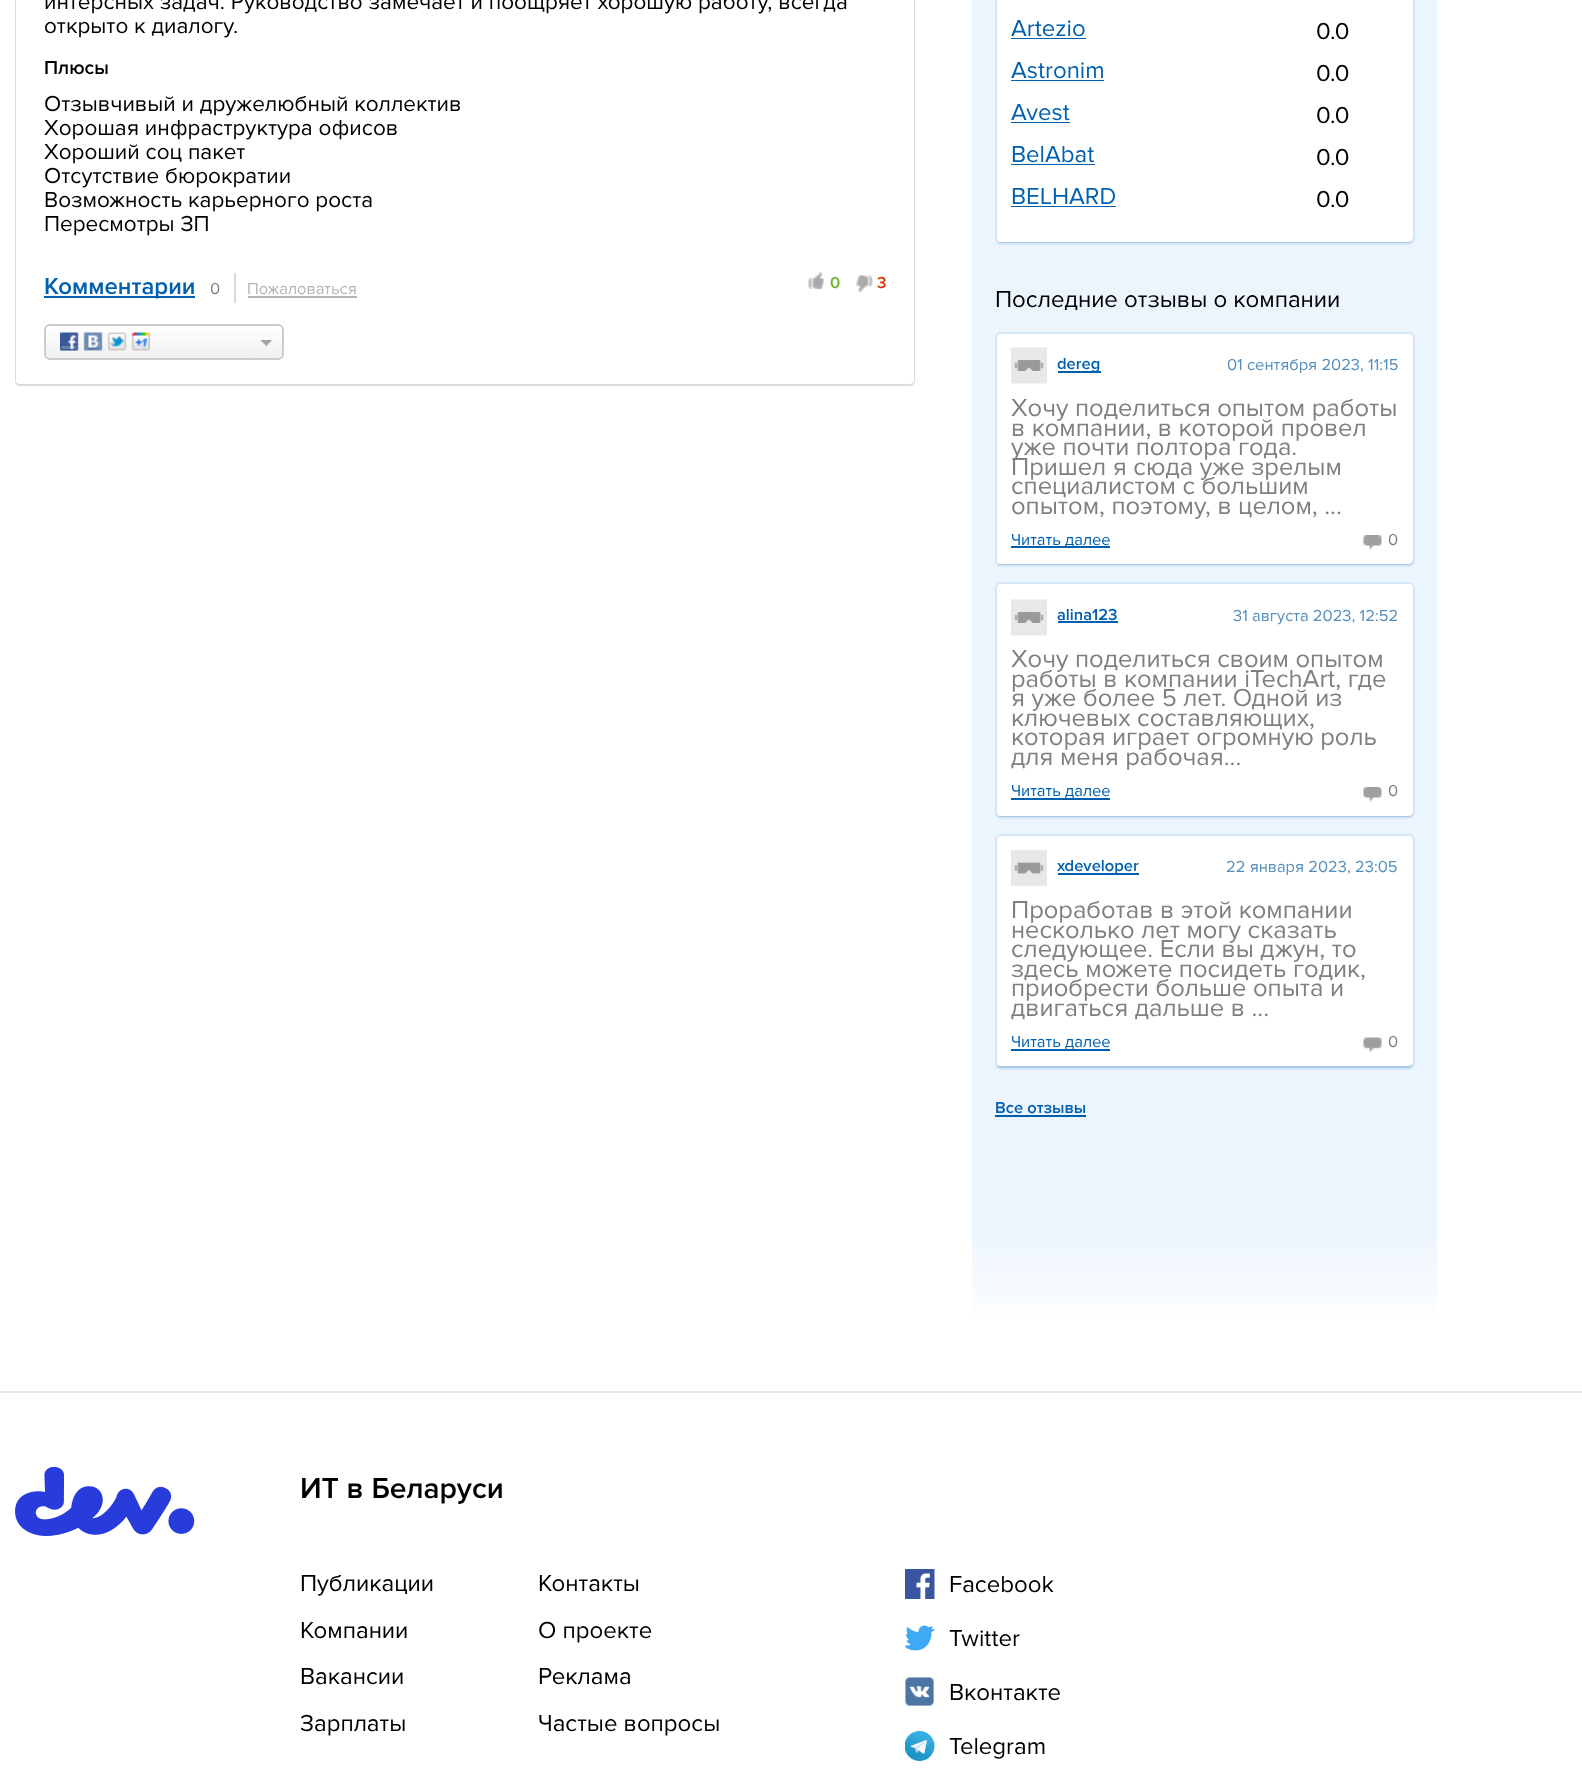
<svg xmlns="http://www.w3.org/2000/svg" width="1582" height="1772">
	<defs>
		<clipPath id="clip1"><rect x="44" y="324" width="240" height="36" rx="6" /></clipPath>
		<linearGradient id="g1" gradientUnits="userSpaceOnUse" x1="164" y1="326" x2="164" y2="359"><stop offset="0" stop-color="#FFFFFF" /><stop offset="1" stop-color="#F0F0F0" /></linearGradient>
		<linearGradient id="g2" gradientUnits="userSpaceOnUse" x1="1205" y1="1206" x2="1205" y2="1370"><stop offset="0" stop-color="#ECF5FD" stop-opacity="0.3" /><stop offset="0.72" stop-color="#FFFFFF" /></linearGradient>
	</defs>
	<rect width="100%" height="100%" fill="#FFFFFF" />
	<path d="M15-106H915V381C915 383 913 386 910 386H20C17 386 15 383 15 381ZM16-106H914V381C914 383 912 384 910 384H20C18 384 16 383 16 381Z" fill="#DBDBDB" fill-rule="evenodd" />
	<g font-family="Proxima Nova" font-size="22.5" fill="#000000">
		<text x="44" y="9">интерсных задач. Руководство замечает и поощряет хорошую работу, всегда</text>
		<text x="44" y="33">открыто к диалогу.</text>
	</g>
	<text x="44" y="74" font-family="Proxima Nova" font-size="19.5" font-weight="600" fill="#000000">Плюсы</text>
	<g font-family="Proxima Nova" font-size="22.5" fill="#000000">
		<text x="44" y="111">Отзывчивый и дружелюбный коллектив</text>
		<text x="44" y="135">Хорошая инфраструктура офисов</text>
		<text x="44" y="159">Хороший соц пакет</text>
		<text x="44" y="183">Отсутствие бюрократии</text>
		<text x="44" y="207">Возможность карьерного роста</text>
		<text x="44" y="231">Пересмотры ЗП</text>
	</g>
	<rect x="44" y="296" width="151" height="2" fill="#0060AF" />
	<text x="44" y="294" font-family="Proxima Nova" font-size="24" font-weight="600" fill="#0060AF">Комментарии</text>
	<text x="210" y="294" font-family="Proxima Nova" font-size="16.5" fill="#808080">0</text>
	<rect x="234" y="273" width="2" height="30" fill="#DBDBDB" />
	<text x="247" y="294" font-family="Proxima Nova" font-size="16.5" fill="#B4B4B4">Пожаловаться</text>
	<rect x="248" y="296" width="109" height="2" fill="#B4B4B4" />
	<image x="808" y="272" width="16" height="17" href="assets/img1.png" />
	<text x="830" y="288" font-family="Proxima Nova" font-size="16.5" font-weight="600" fill="#6DB42D">0</text>
	<image x="856" y="275" width="17" height="17" href="assets/img2.png" />
	<text x="877" y="288" font-family="Proxima Nova" font-size="16.5" font-weight="600" fill="#DB3400">3</text>
	<g clip-path="url(#clip1)">
		<rect x="44" y="326" width="240" height="33" fill="url(#g1)" />
	</g>
	<rect x="45" y="325" width="238" height="34" rx="5" fill="none" stroke="#CCCCCC" stroke-width="2" />
	<image x="60" y="332" width="90" height="19" href="assets/img3.png" />
	<image x="261" y="340" width="11" height="6" href="assets/img4.png" />
	<rect x="972" y="0" width="465" height="1323" fill="#ECF5FD" />
	<rect x="995" y="-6" width="420" height="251" rx="6" fill="#FFFFFF" />
	<path d="M996 237V238C996 241 998 243 1001 243H1408C1411 243 1413 241 1413 238V237C1413 239 1411 242 1408 242H1000C998 242 996 239 996 237Z" fill="#ABCBE7" />
	<rect x="996" y="-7" width="418" height="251" rx="5" fill="none" stroke="#D4E6F5" stroke-width="2" />
	<text x="1011" y="36" font-family="Proxima Nova" font-size="24" fill="#0060AF">Artezio</text>
	<rect x="1011" y="38" width="75" height="1" fill="#0160AF" />
	<text x="1316" y="39" font-family="Proxima Nova" font-size="24" fill="#000000">0.0</text>
	<text x="1011" y="78" font-family="Proxima Nova" font-size="24" fill="#0060AF">Astronim</text>
	<rect x="1011" y="80" width="93" height="1" fill="#0160AF" />
	<text x="1316" y="81" font-family="Proxima Nova" font-size="24" fill="#000000">0.0</text>
	<text x="1011" y="120" font-family="Proxima Nova" font-size="24" fill="#0060AF">Avest</text>
	<rect x="1011" y="122" width="59" height="1" fill="#0160AF" />
	<text x="1316" y="123" font-family="Proxima Nova" font-size="24" fill="#000000">0.0</text>
	<text x="1011" y="162" font-family="Proxima Nova" font-size="24" fill="#0060AF">BelAbat</text>
	<rect x="1011" y="164" width="84" height="1" fill="#0160AF" />
	<text x="1316" y="165" font-family="Proxima Nova" font-size="24" fill="#000000">0.0</text>
	<text x="1011" y="204" font-family="Proxima Nova" font-size="24" fill="#0060AF">BELHARD</text>
	<rect x="1011" y="206" width="105" height="1" fill="#0160AF" />
	<g font-family="Proxima Nova" font-size="24" fill="#000000">
		<text x="1316" y="207">0.0</text>
		<text x="995" y="307">Последние отзывы о компании</text>
	</g>
	<rect x="995" y="332" width="420" height="235" rx="6" fill="#FFFFFF" />
	<path d="M996 560V561C996 564 998 566 1001 566H1408C1411 566 1413 564 1413 561V560C1413 562 1411 564 1408 564H1000C998 564 996 562 996 560Z" fill="#ABCBE7" />
	<rect x="996" y="333" width="418" height="233" rx="5" fill="none" stroke="#D4E6F5" stroke-width="2" />
	<image x="1011" y="347" width="36" height="37" href="assets/img5.png" />
	<rect x="1058" y="371" width="43" height="2" fill="#0060AF" />
	<text x="1057" y="369" font-family="Proxima Nova" font-size="16.5" font-weight="600" fill="#0060AF">dereg</text>
	<text x="1227" y="370" font-family="Proxima Nova" font-size="16.5" fill="#578FBB">01 сентября 2023, 11:15</text>
	<g font-family="Proxima Nova" font-size="25.5" fill="#808080">
		<text x="1011" y="416">Хочу поделиться опытом работы</text>
		<text x="1011" y="436">в компании, в которой провел</text>
		<text x="1011" y="455">уже почти полтора года.</text>
		<text x="1011" y="475">Пришел я сюда уже зрелым</text>
		<text x="1011" y="494">специалистом с большим</text>
		<text x="1011" y="514">опытом, поэтому, в целом, ...</text>
	</g>
	<rect x="1011" y="546" width="99" height="2" fill="#0060AF" />
	<text x="1011" y="545" font-family="Proxima Nova" font-size="16.5" fill="#0060AF">Читать далее</text>
	<image x="1363" y="535" width="19" height="15" href="assets/img6.png" />
	<text x="1388" y="545" font-family="Proxima Nova" font-size="16.5" fill="#808080">0</text>
	<rect x="995" y="582" width="420" height="237" rx="6" fill="#FFFFFF" />
	<path d="M996 812V813C996 816 998 818 1001 818H1408C1411 818 1413 816 1413 813V812C1413 814 1411 816 1408 816H1000C998 816 996 814 996 812Z" fill="#ABCBE7" />
	<rect x="996" y="583" width="418" height="235" rx="5" fill="none" stroke="#D4E6F5" stroke-width="2" />
	<image x="1011" y="599" width="36" height="37" href="assets/img5.png" />
	<text x="1057" y="620" font-family="Proxima Nova" font-size="16.5" font-weight="600" fill="#0060AF">alina123</text>
	<rect x="1058" y="621" width="60" height="2" fill="#0060AF" />
	<text x="1233" y="621" font-family="Proxima Nova" font-size="16.5" fill="#578FBB">31 августа 2023, 12:52</text>
	<g font-family="Proxima Nova" font-size="25.5" fill="#808080">
		<text x="1011" y="667">Хочу поделиться своим опытом</text>
		<text x="1011" y="687">работы в компании iTechArt, где</text>
		<text x="1011" y="706">я уже более 5 лет. Одной из</text>
		<text x="1011" y="726">ключевых составляющих,</text>
		<text x="1011" y="745">которая играет огромную роль</text>
		<text x="1011" y="765">для меня рабочая...</text>
	</g>
	<text x="1011" y="796" font-family="Proxima Nova" font-size="16.5" fill="#0060AF">Читать далее</text>
	<rect x="1011" y="798" width="99" height="2" fill="#0060AF" />
	<image x="1363" y="787" width="19" height="15" href="assets/img6.png" />
	<text x="1388" y="796" font-family="Proxima Nova" font-size="16.5" fill="#808080">0</text>
	<rect x="995" y="834" width="420" height="236" rx="6" fill="#FFFFFF" />
	<path d="M996 1062V1063C996 1066 998 1068 1001 1068H1408C1411 1068 1413 1066 1413 1063V1062C1413 1064 1411 1066 1408 1066H1000C998 1066 996 1064 996 1062Z" fill="#ABCBE7" />
	<rect x="996" y="835" width="418" height="234" rx="5" fill="none" stroke="#D4E6F5" stroke-width="2" />
	<image x="1011" y="850" width="36" height="36" href="assets/img7.png" />
	<rect x="1058" y="873" width="81" height="2" fill="#0060AF" />
	<text x="1057" y="871" font-family="Proxima Nova" font-size="16.5" font-weight="600" fill="#0060AF">xdeveloper</text>
	<text x="1226" y="872" font-family="Proxima Nova" font-size="16.5" fill="#578FBB">22 января 2023, 23:05</text>
	<g font-family="Proxima Nova" font-size="25.5" fill="#808080">
		<text x="1011" y="918">Проработав в этой компании</text>
		<text x="1011" y="938">несколько лет могу сказать</text>
		<text x="1011" y="957">следующее. Если вы джун, то</text>
		<text x="1011" y="977">здесь можете посидеть годик,</text>
		<text x="1011" y="996">приобрести больше опыта и</text>
		<text x="1011" y="1016">двигаться дальше в ...</text>
	</g>
	<text x="1011" y="1047" font-family="Proxima Nova" font-size="16.5" fill="#0060AF">Читать далее</text>
	<rect x="1011" y="1049" width="99" height="2" fill="#0060AF" />
	<image x="1363" y="1037" width="19" height="16" href="assets/img8.png" />
	<text x="1388" y="1047" font-family="Proxima Nova" font-size="16.5" fill="#808080">0</text>
	<text x="995" y="1113" font-family="Proxima Nova" font-size="16.5" font-weight="600" fill="#0060AF">Все отзывы</text>
	<rect x="995" y="1115" width="91" height="2" fill="#0060AF" />
	<rect x="972" y="1240" width="465" height="83" fill="url(#g2)" />
	<rect x="0" y="1391" width="1582" height="2" fill="#E8E8E8" />
	<image x="15" y="1467" width="180" height="69" href="assets/img9.png" />
	<text x="300" y="1498" font-family="Proxima Nova" font-size="30" font-weight="600" fill="#000000">ИТ в Беларуси</text>
	<g font-family="Proxima Nova" font-size="24" fill="#000000">
		<text x="300" y="1591">Публикации</text>
		<text x="300" y="1638">Компании</text>
		<text x="300" y="1684">Вакансии</text>
		<text x="300" y="1731">Зарплаты</text>
		<text x="538" y="1591">Контакты</text>
		<text x="538" y="1638">О проекте</text>
		<text x="538" y="1684">Реклама</text>
		<text x="538" y="1731">Частые вопросы</text>
	</g>
	<image x="905" y="1569" width="30" height="30" href="assets/img10.png" />
	<text x="949" y="1592" font-family="Proxima Nova" font-size="24" fill="#000000">Facebook</text>
	<image x="905" y="1625" width="30" height="26" href="assets/img11.png" />
	<text x="949" y="1646" font-family="Proxima Nova" font-size="24" fill="#000000">Twitter</text>
	<image x="905" y="1677" width="29" height="29" href="assets/img12.png" />
	<text x="949" y="1700" font-family="Proxima Nova" font-size="24" fill="#000000">Вконтакте</text>
	<image x="905" y="1731" width="30" height="30" href="assets/img13.png" />
	<text x="949" y="1754" font-family="Proxima Nova" font-size="24" fill="#000000">Telegram</text>
</svg>
